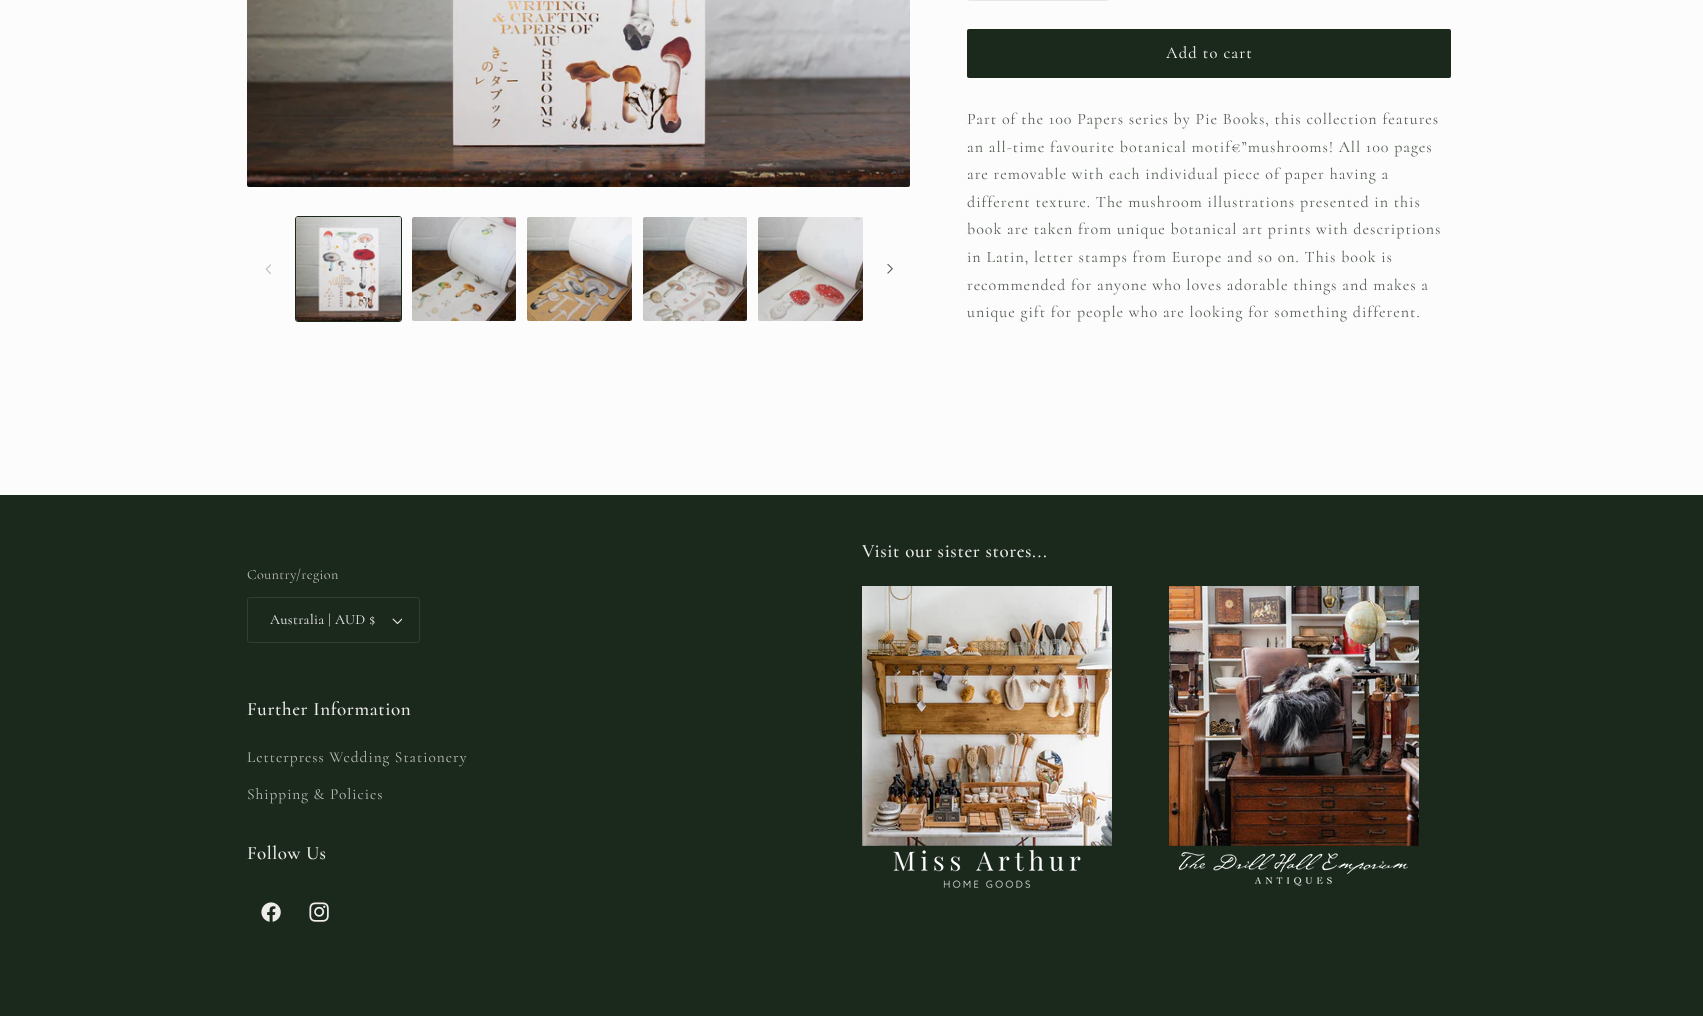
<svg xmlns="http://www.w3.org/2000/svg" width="1703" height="1016">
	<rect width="100%" height="100%" fill="#FDFCFC" />
	<image x="247" y="0" width="663" height="187" href="assets/img1.png" />
	<image x="265" y="264" width="6" height="10" href="assets/img2.png" />
	<rect x="295.5" y="216.5" width="106" height="105" rx="2.5" fill="none" stroke="#1B291D" />
	<image x="296" y="217" width="105" height="104" href="assets/img3.png" />
	<image x="412" y="217" width="104" height="104" href="assets/img4.png" />
	<image x="527" y="217" width="105" height="104" href="assets/img5.png" />
	<image x="643" y="217" width="104" height="104" href="assets/img6.png" />
	<image x="758" y="217" width="105" height="104" href="assets/img7.png" />
	<image x="887" y="264" width="6" height="10" href="assets/img8.png" />
	<rect x="967.5" y="-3.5" width="141" height="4" rx="2.5" fill="none" stroke="#E6E7E6" />
	<rect x="967" y="29" width="484" height="49" rx="2" fill="#1B291D" />
	<text x="1166" y="58" font-family="Cormorant" font-size="16.5" letter-spacing="1.1" fill="#FDFCFC">Add to cart</text>
	<g font-family="Cormorant" font-size="16" letter-spacing="1" fill="#545E55">
		<text x="967" y="124">Part of the 100 Papers series by Pie Books, this collection features</text>
		<text x="967" y="152">an all-time favourite botanical motif€”mushrooms! All 100 pages</text>
		<text x="967" y="179">are removable with each individual piece of paper having a</text>
		<text x="967" y="207">different texture. The mushroom illustrations presented in this</text>
		<text x="967" y="234">book are taken from unique botanical art prints with descriptions</text>
		<text x="967" y="262">in Latin, letter stamps from Europe and so on. This book is</text>
		<text x="967" y="290">recommended for anyone who loves adorable things and makes a</text>
		<text x="967" y="317">unique gift for people who are looking for something different.</text>
	</g>
	<rect x="0" y="495" width="1703" height="521" fill="#1B291D" />
	<text x="862" y="557" font-family="Cormorant" font-size="19" font-weight="500" letter-spacing="0.6" fill="#EFECEC">Visit our sister stores...</text>
	<image x="862" y="586" width="250" height="302" href="assets/img9.png" />
	<text x="247" y="579" font-family="Cormorant" font-size="14.25" letter-spacing="0.4" fill="#BABBB8">Country/region</text>
	<image x="392" y="618" width="10" height="6" href="assets/img10.png" />
	<rect x="247.5" y="597.5" width="172" height="45" rx="2.5" fill="none" stroke="#303D32" />
	<text x="270" y="624" font-family="Cormorant" font-size="14.25" letter-spacing="0.4" fill="#EFECEC">Australia | AUD $</text>
	<text x="247" y="715" font-family="Cormorant" font-size="19" font-weight="500" letter-spacing="0.6" fill="#EFECEC">Further Information</text>
	<g font-family="Cormorant" font-size="15.4" letter-spacing="1" fill="#BABBB8">
		<text x="247" y="762">Letterpress Wedding Stationery</text>
		<text x="247" y="799">Shipping &amp; Policies</text>
	</g>
	<text x="247" y="859" font-family="Cormorant" font-size="19" font-weight="500" letter-spacing="0.6" fill="#EFECEC">Follow Us</text>
	<image x="261" y="902" width="20" height="20" href="assets/img11.png" />
	<image x="309" y="902" width="20" height="20" href="assets/img12.png" />
	<image x="1169" y="586" width="250" height="300" href="assets/img13.png" />
</svg>
